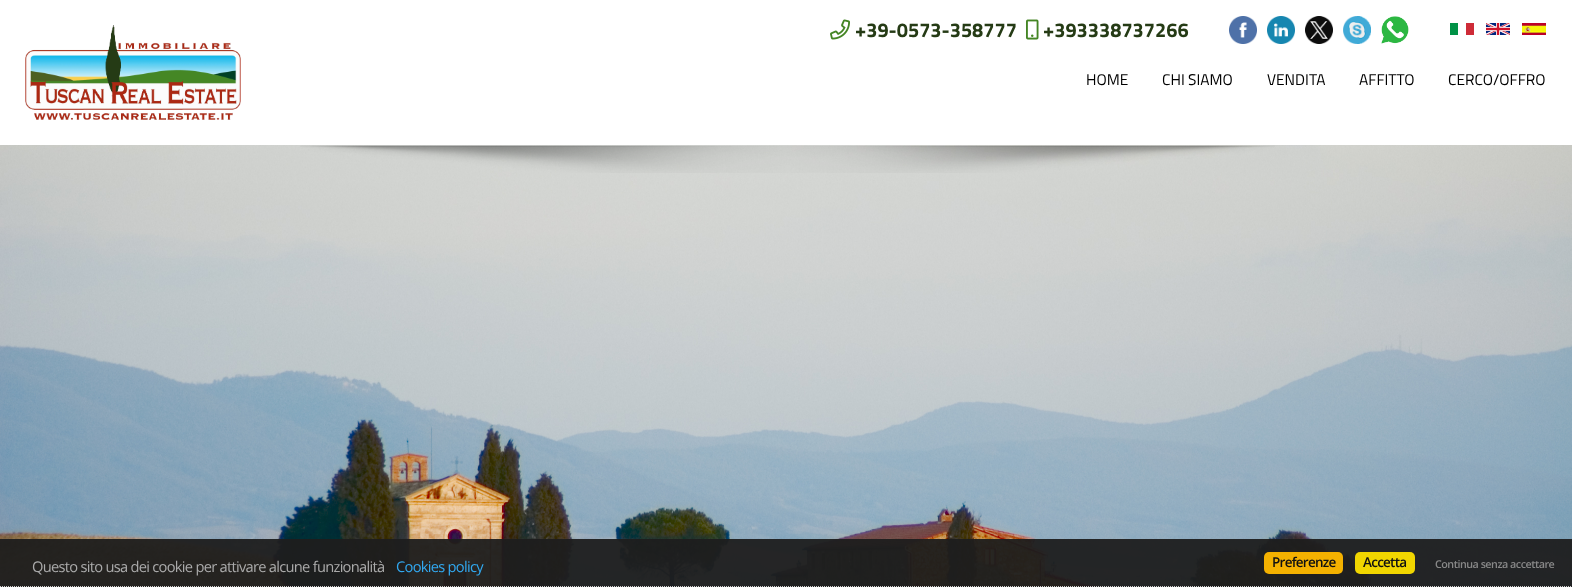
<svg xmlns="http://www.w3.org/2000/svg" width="1572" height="587">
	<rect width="100%" height="100%" fill="#FFFFFF" />
	<image x="25" y="25" width="216" height="95" href="assets/img1.png" />
	<image x="830" y="19" width="20" height="21" href="assets/img2.png" />
	<text x="855" y="37" font-family="Titillium Web" font-size="20" font-weight="700" fill="#253B15">+39-0573-358777</text>
	<image x="1026" y="19" width="13" height="21" href="assets/img3.png" />
	<text x="1043" y="37" font-family="Titillium Web" font-size="20" font-weight="700" fill="#253B15">+393338737266</text>
	<image x="1229" y="16" width="28" height="28" href="assets/img4.png" />
	<image x="1267" y="16" width="28" height="28" href="assets/img5.png" />
	<image x="1305" y="16" width="28" height="28" href="assets/img6.png" />
	<image x="1343" y="16" width="28" height="28" href="assets/img7.png" />
	<image x="1381" y="16" width="28" height="28" href="assets/img8.png" />
	<image x="1450" y="23" width="24" height="12" href="assets/img9.png" />
	<image x="1486" y="23" width="24" height="12" href="assets/img10.png" />
	<image x="1522" y="23" width="24" height="12" href="assets/img11.png" />
	<g font-family="Titillium Web" font-size="15.5" fill="#000000">
		<text x="1086" y="85">HOME</text>
		<text x="1162" y="85">CHI SIAMO</text>
		<text x="1267" y="85">VENDITA</text>
		<text x="1359" y="85">AFFITTO</text>
		<text x="1448" y="85">CERCO/OFFRO</text>
	</g>
	<image x="0" y="145" width="1572" height="442" href="assets/img12.png" />
	<image x="300" y="145" width="975" height="28" href="assets/img13.png" />
	<rect x="0" y="539" width="1572" height="48" fill="#1D1D1D" fill-opacity="0.95" />
	<path d="M0 586.5H1572" fill="none" stroke="#CCCCCC" stroke-dasharray="1 1" />
	<text x="32" y="572" font-family="Open Sans" font-size="14.7" letter-spacing="-0.73" fill="#AAAAAA">Questo sito usa dei cookie per attivare alcune funzionalità</text>
	<text x="396" y="572" font-family="Open Sans" font-size="14.7" letter-spacing="-0.73" fill="#31A8F0">Cookies policy</text>
	<rect x="1264" y="552" width="79" height="22" rx="5" fill="#F4B100" />
	<text x="1272" y="567" font-family="Open Sans" font-size="13.5" font-weight="600" letter-spacing="-0.75" fill="#111111">Preferenze</text>
	<rect x="1355" y="552" width="60" height="22" rx="5" fill="#F1D600" />
	<text x="1363" y="567" font-family="Open Sans" font-size="13.5" font-weight="600" letter-spacing="-0.75" fill="#111111">Accetta</text>
	<text x="1435" y="568" font-family="Open Sans" font-size="10.75" font-weight="600" letter-spacing="-0.5" fill="#888888">Continua senza accettare</text>
</svg>
